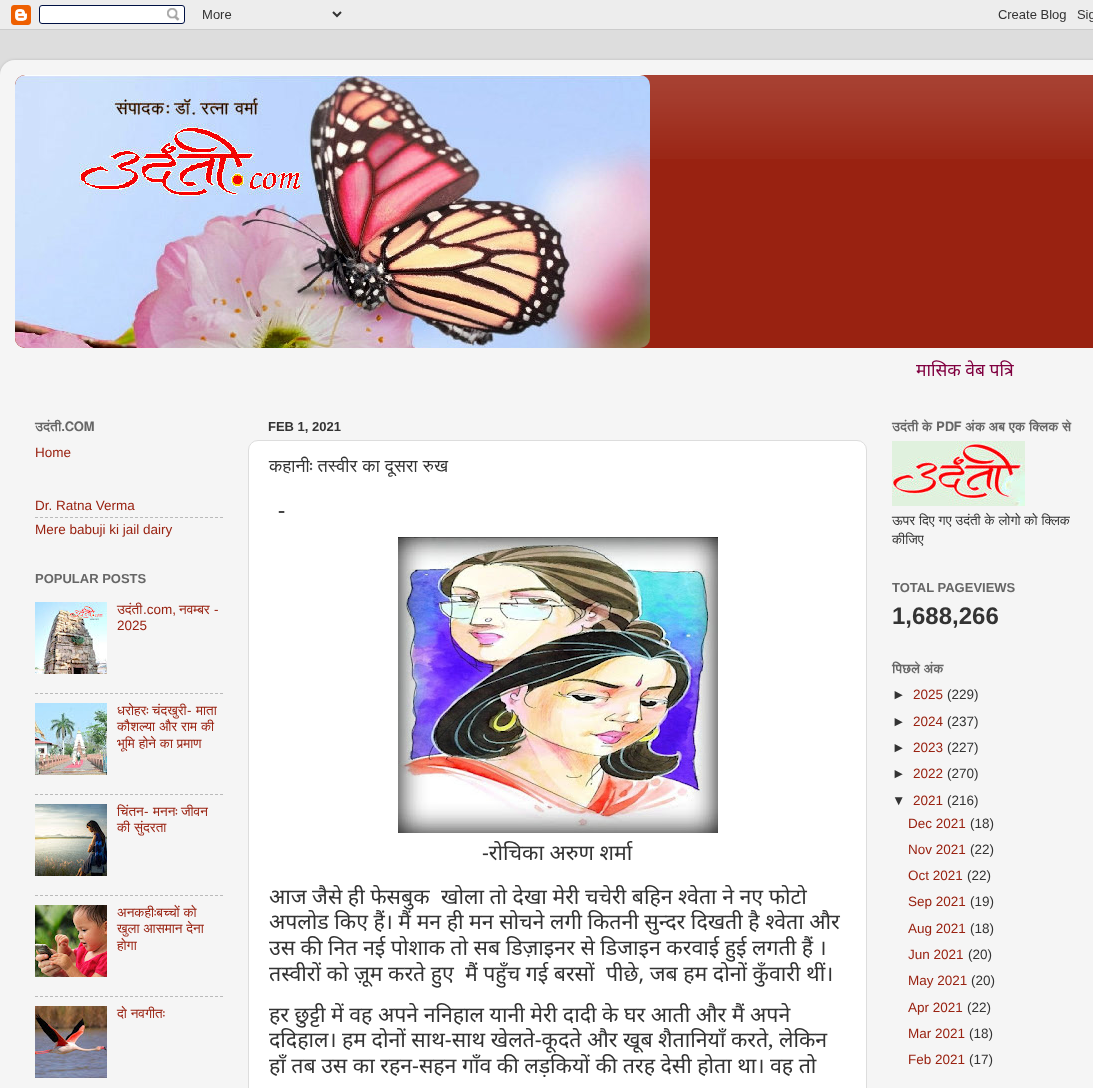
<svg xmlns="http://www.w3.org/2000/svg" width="1093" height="1088">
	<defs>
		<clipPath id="clip1"><path d="M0 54H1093V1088H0ZM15 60H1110C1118.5 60 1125 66.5 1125 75V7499C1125 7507.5 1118.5 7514 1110 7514H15C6.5 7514 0 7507.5 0 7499V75C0 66.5 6.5 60 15 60Z" clip-rule="evenodd" /></clipPath>
	</defs>
	<rect width="100%" height="100%" fill="#DDDDDD" />
	<image x="0" y="0" width="1093" height="30" href="assets/img1.png" />
	<g clip-path="url(#clip1)">
		<rect x="0" y="60" width="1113" height="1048" rx="15" fill="#000000" fill-opacity="0.15" filter="blur(1.5px)" />
	</g>
	<image x="0" y="60" width="1093" height="1028" href="assets/img2.png" />
	<rect x="15" y="75" width="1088" height="273" rx="10" fill="#992211" />
	<image x="15" y="75" width="1078" height="84" href="assets/img3.png" />
	<image x="15" y="75" width="635" height="273" href="assets/img4.png" />
	<text x="916" y="376" font-family="Noto Sans" font-size="17.5" fill="#800040">मासिक वेब पत्रि</text>
	<text x="35" y="431" font-family="FreeSans" font-size="13" font-weight="600" fill="#666666">उदंती.COM</text>
	<g font-family="Liberation Sans" font-size="13.5" fill="#992211">
		<text x="35" y="457">Home</text>
		<text x="35" y="510">Dr. Ratna Verma</text>
	</g>
	<path d="M35 517.5H223" fill="none" stroke="#BABABA" stroke-dasharray="3 2" />
	<text x="35" y="534" font-family="Liberation Sans" font-size="13.5" fill="#992211">Mere babuji ki jail dairy</text>
	<text x="35" y="583" font-family="Liberation Sans" font-size="13" font-weight="700" fill="#666666">POPULAR POSTS</text>
	<image x="35" y="602" width="72" height="72" href="assets/img5.png" />
	<text x="117" y="614" font-family="FreeSans" font-size="13.5" fill="#992211">उदंती</text>
	<text x="143" y="614" font-family="Liberation Sans" font-size="13.5" fill="#992211">.com,</text>
	<text x="179" y="614" font-family="FreeSans" font-size="13.5" fill="#992211">नवम्बर</text>
	<g font-family="Liberation Sans" font-size="13.5" fill="#992211">
		<text x="214" y="614">-</text>
		<text x="117" y="630">2025</text>
	</g>
	<path d="M35 693.5H223" fill="none" stroke="#BABABA" stroke-dasharray="3 2" />
	<image x="35" y="703" width="72" height="72" href="assets/img6.png" />
	<text x="117" y="715" font-family="FreeSans" font-size="13.5" fill="#992211">धरोहरः चंदखुरी</text>
	<text x="187" y="715" font-family="Liberation Sans" font-size="13.5" fill="#992211">-</text>
	<g font-family="FreeSans" font-size="13.5" fill="#992211">
		<text x="196" y="715">माता</text>
		<text x="117" y="731" word-spacing="0.5">कौशल्या और राम की</text>
		<text x="117" y="748" word-spacing="0.5">भूमि होने का प्रमाण</text>
	</g>
	<path d="M35 794.5H223" fill="none" stroke="#BABABA" stroke-dasharray="3 2" />
	<image x="35" y="804" width="72" height="72" href="assets/img7.png" />
	<text x="117" y="816" font-family="FreeSans" font-size="13.5" fill="#992211">चिंतन</text>
	<text x="144" y="816" font-family="Liberation Sans" font-size="13.5" fill="#992211">-</text>
	<g font-family="FreeSans" font-size="13.5" fill="#992211">
		<text x="153" y="816">मननः जीवन</text>
		<text x="117" y="832" word-spacing="0.5">की सुंदरता</text>
	</g>
	<path d="M35 895.5H223" fill="none" stroke="#BABABA" stroke-dasharray="3 2" />
	<image x="35" y="905" width="72" height="72" href="assets/img8.png" />
	<g font-family="FreeSans" font-size="13.5" fill="#992211">
		<text x="117" y="917" word-spacing="0.5">अनकहीःबच्चों को</text>
		<text x="117" y="933" word-spacing="0.5">खुला आसमान देना</text>
		<text x="117" y="950">होगा</text>
	</g>
	<path d="M35 996.5H223" fill="none" stroke="#BABABA" stroke-dasharray="3 2" />
	<image x="35" y="1006" width="72" height="72" href="assets/img9.png" />
	<text x="117" y="1018" word-spacing="0.5" font-family="FreeSans" font-size="13.5" fill="#992211">दो नवगीतः</text>
	<text x="268" y="431" font-family="Liberation Sans" font-size="13" font-weight="700" fill="#333333">FEB 1, 2021</text>
	<rect x="248.5" y="440.5" width="618" height="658" rx="9.5" fill="#FFFFFF" stroke="#DDDDDD" />
	<text x="269" y="472" word-spacing="0.5" font-family="FreeSans" font-size="18" fill="#333333">कहानीः तस्वीर का दूसरा रुख</text>
	<text x="278" y="517" font-family="Liberation Serif" font-size="21.3" font-weight="700" fill="#333333">-</text>
	<image x="398" y="537" width="320" height="296" href="assets/img10.png" />
	<g font-family="Noto Sans" font-size="21.3" fill="#333333">
		<text x="482" y="860">-रोचिका अरुण शर्मा</text>
		<text x="269" y="904">आज जैसे ही फेसबुक</text>
		<text x="441" y="904">खोला तो देखा मेरी चचेरी बहिन श्वेता ने नए फोटो</text>
		<text x="269" y="929">अपलोड किए हैं। मैं मन ही मन सोचने लगी कितनी सुन्दर दिखती है श्वेता और</text>
		<text x="269" y="955">उस की नित नई पोशाक तो सब डिज़ाइनर से डिजाइन करवाई हुई लगती हैं ।</text>
		<text x="269" y="981">तस्वीरों को ज़ूम करते हुए</text>
		<text x="465" y="981">मैं पहुँच गई बरसों</text>
		<text x="606" y="981">पीछे, जब हम दोनों कुँवारी थीं।</text>
		<text x="269" y="1022">हर छुट्टी में वह अपने ननिहाल यानी मेरी दादी के घर आती और मैं अपने</text>
		<text x="269" y="1047">ददिहाल। हम दोनों साथ-साथ खेलते-कूदते और खूब शैतानियाँ करते</text>
	</g>
	<text x="768" y="1047" font-family="Noto Serif" font-size="21.3" fill="#333333">,</text>
	<g font-family="Noto Sans" font-size="21.3" fill="#333333">
		<text x="779" y="1047">लेकिन</text>
		<text x="269" y="1073">हाँ तब उस का रहन-सहन गाँव की लड़कियों की तरह देसी होता था। वह तो</text>
	</g>
	<text x="892" y="431" font-family="FreeSans" font-size="13" font-weight="600" fill="#666666">उदंती के PDF अंक अब एक क्लिक से</text>
	<image x="892" y="441" width="133" height="65" href="assets/img11.png" />
	<g font-family="FreeSans" font-size="13.5" fill="#333333">
		<text x="892" y="525" word-spacing="0.5">ऊपर दिए गए उदंती के लोगो को क्लिक</text>
		<text x="892" y="544">कीजिए</text>
	</g>
	<text x="892" y="592" font-family="Liberation Sans" font-size="13" font-weight="700" fill="#666666">TOTAL PAGEVIEWS</text>
	<text x="892" y="624" font-family="Liberation Sans" font-size="24" font-weight="700" fill="#333333">1,688,266</text>
	<text x="892" y="673" font-family="FreeSans" font-size="13" font-weight="600" fill="#666666">पिछले अंक</text>
	<text x="892" y="699" font-family="Liberation Sans" font-size="13.5" fill="#333333">►</text>
	<text x="913" y="699" font-family="Liberation Sans" font-size="13.5" fill="#992211">2025</text>
	<g font-family="Liberation Sans" font-size="13.5" fill="#333333">
		<text x="947" y="699">(229)</text>
		<text x="892" y="726">►</text>
	</g>
	<text x="913" y="726" font-family="Liberation Sans" font-size="13.5" fill="#992211">2024</text>
	<g font-family="Liberation Sans" font-size="13.5" fill="#333333">
		<text x="947" y="726">(237)</text>
		<text x="892" y="752">►</text>
	</g>
	<text x="913" y="752" font-family="Liberation Sans" font-size="13.5" fill="#992211">2023</text>
	<g font-family="Liberation Sans" font-size="13.5" fill="#333333">
		<text x="947" y="752">(227)</text>
		<text x="892" y="778">►</text>
	</g>
	<text x="913" y="778" font-family="Liberation Sans" font-size="13.5" fill="#992211">2022</text>
	<g font-family="Liberation Sans" font-size="13.5" fill="#333333">
		<text x="947" y="778">(270)</text>
		<text x="892" y="805">▼</text>
	</g>
	<text x="913" y="805" font-family="Liberation Sans" font-size="13.5" fill="#992211">2021</text>
	<text x="947" y="805" font-family="Liberation Sans" font-size="13.5" fill="#333333">(216)</text>
	<text x="908" y="828" font-family="Liberation Sans" font-size="13.5" fill="#992211">Dec 2021</text>
	<text x="970" y="828" font-family="Liberation Sans" font-size="13.5" fill="#333333">(18)</text>
	<text x="908" y="854" font-family="Liberation Sans" font-size="13.5" fill="#992211">Nov 2021</text>
	<text x="970" y="854" font-family="Liberation Sans" font-size="13.5" fill="#333333">(22)</text>
	<text x="908" y="880" font-family="Liberation Sans" font-size="13.5" fill="#992211">Oct 2021</text>
	<text x="967" y="880" font-family="Liberation Sans" font-size="13.5" fill="#333333">(22)</text>
	<text x="908" y="906" font-family="Liberation Sans" font-size="13.5" fill="#992211">Sep 2021</text>
	<text x="970" y="906" font-family="Liberation Sans" font-size="13.5" fill="#333333">(19)</text>
	<text x="908" y="933" font-family="Liberation Sans" font-size="13.5" fill="#992211">Aug 2021</text>
	<text x="970" y="933" font-family="Liberation Sans" font-size="13.5" fill="#333333">(18)</text>
	<text x="908" y="959" font-family="Liberation Sans" font-size="13.5" fill="#992211">Jun 2021</text>
	<text x="968" y="959" font-family="Liberation Sans" font-size="13.5" fill="#333333">(20)</text>
	<text x="908" y="985" font-family="Liberation Sans" font-size="13.5" fill="#992211">May 2021</text>
	<text x="971" y="985" font-family="Liberation Sans" font-size="13.5" fill="#333333">(20)</text>
	<text x="908" y="1012" font-family="Liberation Sans" font-size="13.5" fill="#992211">Apr 2021</text>
	<text x="967" y="1012" font-family="Liberation Sans" font-size="13.5" fill="#333333">(22)</text>
	<text x="908" y="1038" font-family="Liberation Sans" font-size="13.5" fill="#992211">Mar 2021</text>
	<text x="969" y="1038" font-family="Liberation Sans" font-size="13.5" fill="#333333">(18)</text>
	<text x="908" y="1064" font-family="Liberation Sans" font-size="13.5" fill="#992211">Feb 2021</text>
	<text x="969" y="1064" font-family="Liberation Sans" font-size="13.5" fill="#333333">(17)</text>
</svg>
